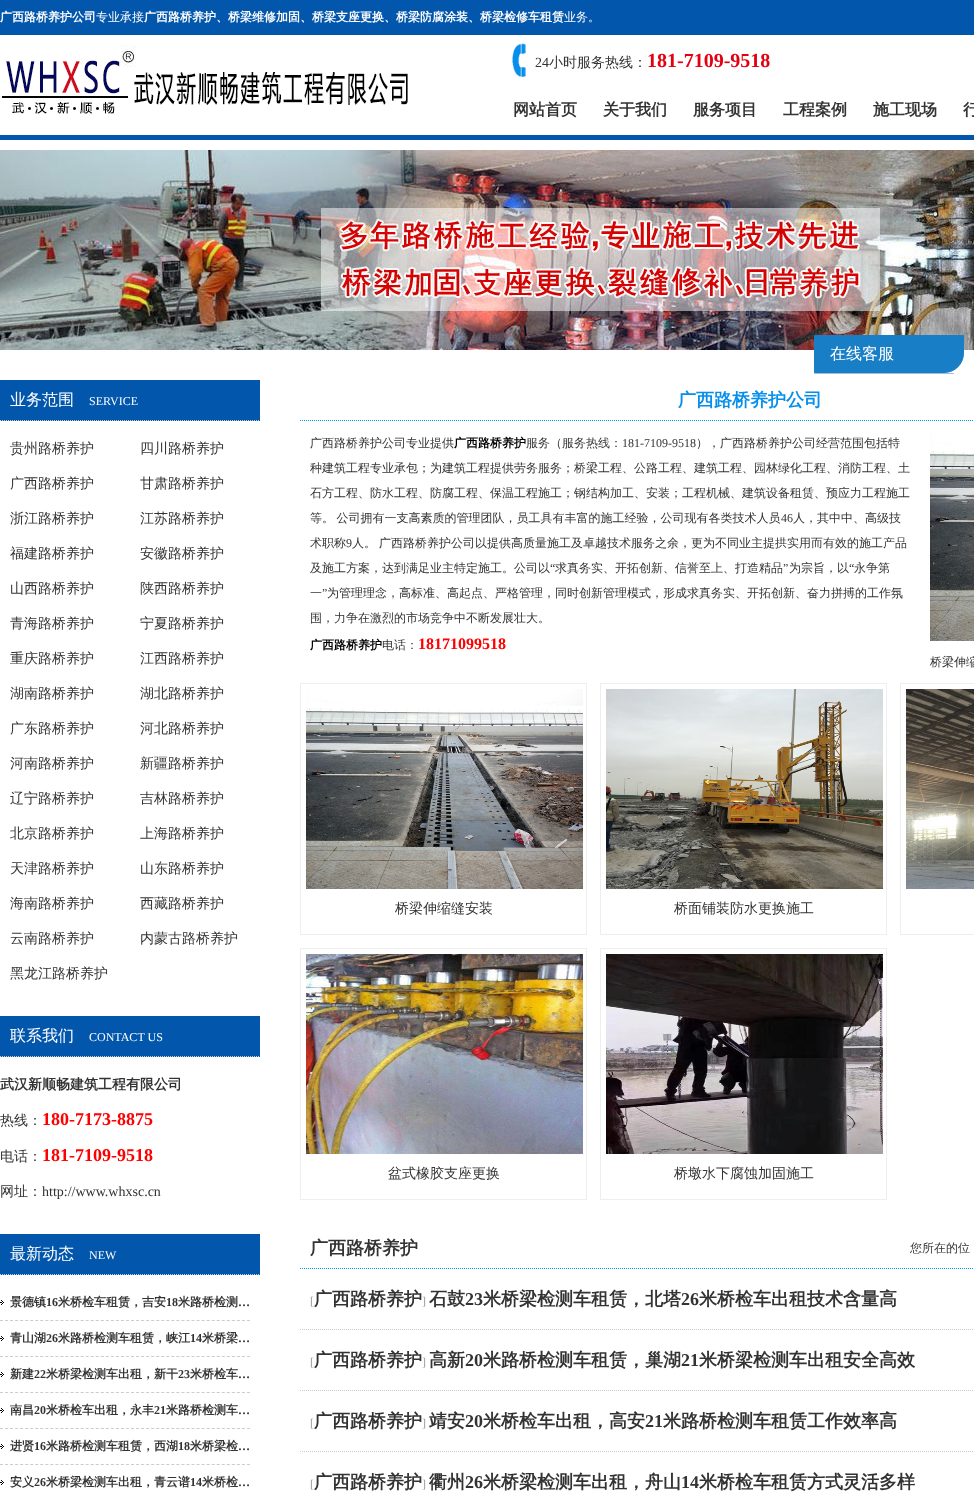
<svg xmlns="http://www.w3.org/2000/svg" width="974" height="1499">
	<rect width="100%" height="100%" fill="#FFFFFF" />
	<rect x="0" y="0" width="974" height="35" fill="#0256AC" />
	<text x="0" y="21" font-family="WenQuanYi Zen Hei" font-size="12" font-weight="700" fill="#FFFFFF">广西路桥养护公司</text>
	<text x="96" y="21" font-family="WenQuanYi Zen Hei" font-size="12" font-weight="500" fill="#FFFFFF">专业承接</text>
	<text x="144" y="21" font-family="WenQuanYi Zen Hei" font-size="12" font-weight="700" fill="#FFFFFF">广西路桥养护、桥梁维修加固、桥梁支座更换、桥梁防腐涂装、桥梁检修车租赁</text>
	<text x="564" y="21" font-family="WenQuanYi Zen Hei" font-size="12" font-weight="500" fill="#FFFFFF">业务。</text>
	<image x="2" y="45" width="406" height="69" href="assets/img1.png" />
	<image x="512" y="43" width="14" height="34" href="assets/img2.png" />
	<text x="535" y="67" font-family="Liberation Serif" font-size="14" fill="#333333">24</text>
	<text x="549" y="67" font-family="WenQuanYi Zen Hei" font-size="14" font-weight="500" fill="#333333">小时服务热线：</text>
	<text x="647" y="67" font-family="Liberation Serif" font-size="20" font-weight="700" fill="#E40011">181-7109-9518</text>
	<g font-family="WenQuanYi Zen Hei" font-size="16" font-weight="700" fill="#333333">
		<text x="513" y="115">网站首页</text>
		<text x="603" y="115">关于我们</text>
		<text x="693" y="115">服务项目</text>
		<text x="783" y="115">工程案例</text>
		<text x="873" y="115">施工现场</text>
		<text x="963" y="115">行</text>
	</g>
	<rect x="0" y="135" width="974" height="5" fill="#0256AC" />
	<rect x="814" y="373" width="140" height="1" fill="#A6BBE2" />
	<image x="0" y="150" width="974" height="200" href="assets/img3.png" />
	<path d="M814.5 335.5H963.5V353C963.5 364 955 372.5 944 372.5H814.5Z" fill="#187EC6" stroke="#187EC6" />
	<text x="830" y="359" font-family="WenQuanYi Zen Hei" font-size="16" font-weight="500" fill="#FFFFFF">在线客服</text>
	<rect x="0" y="380" width="260" height="41" fill="#0256AC" />
	<path d="M0 420.5H260" fill="none" stroke="#CCCCCC" stroke-dasharray="1 1" />
	<text x="10" y="405" font-family="WenQuanYi Zen Hei" font-size="16" font-weight="500" fill="#FFFFFF">业务范围</text>
	<text x="89" y="405" font-family="Liberation Serif" font-size="12" fill="#FFFFFF">SERVICE</text>
	<g font-family="WenQuanYi Zen Hei" font-size="14" font-weight="500" fill="#333333">
		<text x="10" y="453">贵州路桥养护</text>
		<text x="140" y="453">四川路桥养护</text>
		<text x="10" y="488">广西路桥养护</text>
		<text x="140" y="488">甘肃路桥养护</text>
		<text x="10" y="523">浙江路桥养护</text>
		<text x="140" y="523">江苏路桥养护</text>
		<text x="10" y="558">福建路桥养护</text>
		<text x="140" y="558">安徽路桥养护</text>
		<text x="10" y="593">山西路桥养护</text>
		<text x="140" y="593">陕西路桥养护</text>
		<text x="10" y="628">青海路桥养护</text>
		<text x="140" y="628">宁夏路桥养护</text>
		<text x="10" y="663">重庆路桥养护</text>
		<text x="140" y="663">江西路桥养护</text>
		<text x="10" y="698">湖南路桥养护</text>
		<text x="140" y="698">湖北路桥养护</text>
		<text x="10" y="733">广东路桥养护</text>
		<text x="140" y="733">河北路桥养护</text>
		<text x="10" y="768">河南路桥养护</text>
		<text x="140" y="768">新疆路桥养护</text>
		<text x="10" y="803">辽宁路桥养护</text>
		<text x="140" y="803">吉林路桥养护</text>
		<text x="10" y="838">北京路桥养护</text>
		<text x="140" y="838">上海路桥养护</text>
		<text x="10" y="873">天津路桥养护</text>
		<text x="140" y="873">山东路桥养护</text>
		<text x="10" y="908">海南路桥养护</text>
		<text x="140" y="908">西藏路桥养护</text>
		<text x="10" y="943">云南路桥养护</text>
		<text x="140" y="943">内蒙古路桥养护</text>
		<text x="10" y="978">黑龙江路桥养护</text>
	</g>
	<rect x="0" y="1016" width="260" height="41" fill="#0256AC" />
	<path d="M0 1056.5H260" fill="none" stroke="#CCCCCC" stroke-dasharray="1 1" />
	<text x="10" y="1041" font-family="WenQuanYi Zen Hei" font-size="16" font-weight="500" fill="#FFFFFF">联系我们</text>
	<text x="89" y="1041" font-family="Liberation Serif" font-size="12" fill="#FFFFFF">CONTACT US</text>
	<text x="0" y="1089" font-family="WenQuanYi Zen Hei" font-size="14" font-weight="700" fill="#333333">武汉新顺畅建筑工程有限公司</text>
	<text x="0" y="1125" font-family="WenQuanYi Zen Hei" font-size="14" font-weight="500" fill="#333333">热线：</text>
	<text x="42" y="1125" font-family="Liberation Serif" font-size="18" font-weight="700" fill="#FF0000">180-7173-8875</text>
	<text x="0" y="1161" font-family="WenQuanYi Zen Hei" font-size="14" font-weight="500" fill="#333333">电话：</text>
	<text x="42" y="1161" font-family="Liberation Serif" font-size="18" font-weight="700" fill="#FF0000">181-7109-9518</text>
	<text x="0" y="1196" font-family="WenQuanYi Zen Hei" font-size="14" font-weight="500" fill="#333333">网址：</text>
	<text x="42" y="1196" font-family="Liberation Serif" font-size="14" fill="#333333">http://www.whxsc.cn</text>
	<rect x="0" y="1234" width="260" height="41" fill="#0256AC" />
	<path d="M0 1274.5H260" fill="none" stroke="#CCCCCC" stroke-dasharray="1 1" />
	<text x="10" y="1259" font-family="WenQuanYi Zen Hei" font-size="16" font-weight="500" fill="#FFFFFF">最新动态</text>
	<text x="89" y="1259" font-family="Liberation Serif" font-size="12" fill="#FFFFFF">NEW</text>
	<image x="0" y="1300" width="4" height="5" href="assets/img4.png" />
	<path d="M0 1320.5H250" fill="none" stroke="#CCCCCC" stroke-dasharray="3 2.04" />
	<text x="10" y="1306" font-family="WenQuanYi Zen Hei" font-size="12" font-weight="700" fill="#333333">景德镇</text>
	<text x="46" y="1306" font-family="Liberation Serif" font-size="12" font-weight="700" fill="#333333">16</text>
	<text x="58" y="1306" font-family="WenQuanYi Zen Hei" font-size="12" font-weight="700" fill="#333333">米桥检车租赁，吉安</text>
	<text x="166" y="1306" font-family="Liberation Serif" font-size="12" font-weight="700" fill="#333333">18</text>
	<text x="178" y="1306" font-family="WenQuanYi Zen Hei" font-size="12" font-weight="700" fill="#333333">米路桥检测</text>
	<text x="238" y="1306" font-family="Liberation Serif" font-size="12" font-weight="700" fill="#333333">…</text>
	<image x="0" y="1336" width="4" height="5" href="assets/img4.png" />
	<path d="M0 1356.5H250" fill="none" stroke="#CCCCCC" stroke-dasharray="3 2.04" />
	<text x="10" y="1342" font-family="WenQuanYi Zen Hei" font-size="12" font-weight="700" fill="#333333">青山湖</text>
	<text x="46" y="1342" font-family="Liberation Serif" font-size="12" font-weight="700" fill="#333333">26</text>
	<text x="58" y="1342" font-family="WenQuanYi Zen Hei" font-size="12" font-weight="700" fill="#333333">米路桥检测车租赁，峡江</text>
	<text x="190" y="1342" font-family="Liberation Serif" font-size="12" font-weight="700" fill="#333333">14</text>
	<text x="202" y="1342" font-family="WenQuanYi Zen Hei" font-size="12" font-weight="700" fill="#333333">米桥梁</text>
	<text x="238" y="1342" font-family="Liberation Serif" font-size="12" font-weight="700" fill="#333333">…</text>
	<image x="0" y="1372" width="4" height="5" href="assets/img4.png" />
	<path d="M0 1392.5H250" fill="none" stroke="#CCCCCC" stroke-dasharray="3 2.04" />
	<text x="10" y="1378" font-family="WenQuanYi Zen Hei" font-size="12" font-weight="700" fill="#333333">新建</text>
	<text x="34" y="1378" font-family="Liberation Serif" font-size="12" font-weight="700" fill="#333333">22</text>
	<text x="46" y="1378" font-family="WenQuanYi Zen Hei" font-size="12" font-weight="700" fill="#333333">米桥梁检测车出租，新干</text>
	<text x="178" y="1378" font-family="Liberation Serif" font-size="12" font-weight="700" fill="#333333">23</text>
	<text x="190" y="1378" font-family="WenQuanYi Zen Hei" font-size="12" font-weight="700" fill="#333333">米桥检车</text>
	<text x="238" y="1378" font-family="Liberation Serif" font-size="12" font-weight="700" fill="#333333">…</text>
	<image x="0" y="1408" width="4" height="5" href="assets/img4.png" />
	<path d="M0 1428.5H250" fill="none" stroke="#CCCCCC" stroke-dasharray="3 2.04" />
	<text x="10" y="1414" font-family="WenQuanYi Zen Hei" font-size="12" font-weight="700" fill="#333333">南昌</text>
	<text x="34" y="1414" font-family="Liberation Serif" font-size="12" font-weight="700" fill="#333333">20</text>
	<text x="46" y="1414" font-family="WenQuanYi Zen Hei" font-size="12" font-weight="700" fill="#333333">米桥检车出租，永丰</text>
	<text x="154" y="1414" font-family="Liberation Serif" font-size="12" font-weight="700" fill="#333333">21</text>
	<text x="166" y="1414" font-family="WenQuanYi Zen Hei" font-size="12" font-weight="700" fill="#333333">米路桥检测车</text>
	<text x="238" y="1414" font-family="Liberation Serif" font-size="12" font-weight="700" fill="#333333">…</text>
	<image x="0" y="1444" width="4" height="5" href="assets/img4.png" />
	<path d="M0 1464.5H250" fill="none" stroke="#CCCCCC" stroke-dasharray="3 2.04" />
	<text x="10" y="1450" font-family="WenQuanYi Zen Hei" font-size="12" font-weight="700" fill="#333333">进贤</text>
	<text x="34" y="1450" font-family="Liberation Serif" font-size="12" font-weight="700" fill="#333333">16</text>
	<text x="46" y="1450" font-family="WenQuanYi Zen Hei" font-size="12" font-weight="700" fill="#333333">米路桥检测车租赁，西湖</text>
	<text x="178" y="1450" font-family="Liberation Serif" font-size="12" font-weight="700" fill="#333333">18</text>
	<text x="190" y="1450" font-family="WenQuanYi Zen Hei" font-size="12" font-weight="700" fill="#333333">米桥梁检</text>
	<text x="238" y="1450" font-family="Liberation Serif" font-size="12" font-weight="700" fill="#333333">…</text>
	<image x="0" y="1480" width="4" height="5" href="assets/img4.png" />
	<text x="10" y="1486" font-family="WenQuanYi Zen Hei" font-size="12" font-weight="700" fill="#333333">安义</text>
	<text x="34" y="1486" font-family="Liberation Serif" font-size="12" font-weight="700" fill="#333333">26</text>
	<text x="46" y="1486" font-family="WenQuanYi Zen Hei" font-size="12" font-weight="700" fill="#333333">米桥梁检测车出租，青云谱</text>
	<text x="190" y="1486" font-family="Liberation Serif" font-size="12" font-weight="700" fill="#333333">14</text>
	<text x="202" y="1486" font-family="WenQuanYi Zen Hei" font-size="12" font-weight="700" fill="#333333">米桥检</text>
	<text x="238" y="1486" font-family="Liberation Serif" font-size="12" font-weight="700" fill="#333333">…</text>
	<path d="M300 420.5H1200" fill="none" stroke="#00A0E9" stroke-dasharray="1 1" />
	<text x="678" y="406" font-family="WenQuanYi Zen Hei" font-size="18" font-weight="700" fill="#048FEC">广西路桥养护公司</text>
	<text x="310" y="447" font-family="WenQuanYi Zen Hei" font-size="12" font-weight="500" fill="#333333">广西路桥养护公司专业提供</text>
	<text x="454" y="447" font-family="WenQuanYi Zen Hei" font-size="12" font-weight="700" fill="#000000">广西路桥养护</text>
	<text x="526" y="447" font-family="WenQuanYi Zen Hei" font-size="12" font-weight="500" fill="#333333">服务（服务热线：</text>
	<text x="622" y="447" font-family="Liberation Serif" font-size="12" fill="#333333">181-7109-9518</text>
	<g font-family="WenQuanYi Zen Hei" font-size="12" font-weight="500" fill="#333333">
		<text x="696" y="447">），广西路桥养护公司经营范围包括特</text>
		<text x="310" y="472">种建筑工程专业承包；为建筑工程提供劳务服务；桥梁工程、公路工程、建筑工程、园林绿化工程、消防工程、土</text>
		<text x="310" y="497">石方工程、防水工程、防腐工程、保温工程施工；钢结构加工、安装；工程机械、建筑设备租赁、预应力工程施工</text>
		<text x="310" y="522" word-spacing="-1">等。 公司拥有一支高素质的管理团队，员工具有丰富的施工经验，公司现有各类技术人员</text>
	</g>
	<text x="781" y="522" font-family="Liberation Serif" font-size="12" fill="#333333">46</text>
	<g font-family="WenQuanYi Zen Hei" font-size="12" font-weight="500" fill="#333333">
		<text x="793" y="522">人，其中中、高级技</text>
		<text x="310" y="547">术职称</text>
	</g>
	<text x="346" y="547" font-family="Liberation Serif" font-size="12" fill="#333333">9</text>
	<g font-family="WenQuanYi Zen Hei" font-size="12" font-weight="500" fill="#333333">
		<text x="352" y="547">人。</text>
		<text x="379" y="547">广西路桥养护公司以提供高质量施工及卓越技术服务之余，更为不同业主提拱实用而有效的施工产品</text>
		<text x="310" y="572">及施工方案，达到满足业主特定施工。公司以</text>
	</g>
	<text x="550" y="572" font-family="Liberation Serif" font-size="12" fill="#333333">“</text>
	<text x="555" y="572" font-family="WenQuanYi Zen Hei" font-size="12" font-weight="500" fill="#333333">求真务实、开拓创新、信誉至上、打造精品</text>
	<text x="783" y="572" font-family="Liberation Serif" font-size="12" fill="#333333">”</text>
	<text x="789" y="572" font-family="WenQuanYi Zen Hei" font-size="12" font-weight="500" fill="#333333">为宗旨，以</text>
	<text x="849" y="572" font-family="Liberation Serif" font-size="12" fill="#333333">“</text>
	<g font-family="WenQuanYi Zen Hei" font-size="12" font-weight="500" fill="#333333">
		<text x="854" y="572">永争第</text>
		<text x="310" y="597">一</text>
	</g>
	<text x="322" y="597" font-family="Liberation Serif" font-size="12" fill="#333333">”</text>
	<g font-family="WenQuanYi Zen Hei" font-size="12" font-weight="500" fill="#333333">
		<text x="327" y="597">为管理理念，高标准、高起点、严格管理，同时创新管理模式，形成求真务实、开拓创新、奋力拼搏的工作氛</text>
		<text x="310" y="622">围，力争在激烈的市场竞争中不断发展壮大。</text>
	</g>
	<text x="310" y="649" font-family="WenQuanYi Zen Hei" font-size="12" font-weight="700" fill="#000000">广西路桥养护</text>
	<text x="382" y="649" font-family="WenQuanYi Zen Hei" font-size="12" font-weight="500" fill="#333333">电话：</text>
	<text x="418" y="649" font-family="Liberation Serif" font-size="16" font-weight="700" fill="#FF0000">18171099518</text>
	<image x="930" y="431" width="44" height="210" href="assets/img5.png" />
	<text x="930" y="666" font-family="WenQuanYi Zen Hei" font-size="12" font-weight="500" fill="#333333">桥梁伸缩</text>
	<rect x="300.5" y="683.5" width="286" height="251" fill="none" stroke="#EEEEEE" />
	<image x="306" y="689" width="277" height="200" href="assets/img6.png" />
	<text x="395" y="913" font-family="WenQuanYi Zen Hei" font-size="14" font-weight="500" fill="#333333">桥梁伸缩缝安装</text>
	<rect x="600.5" y="683.5" width="286" height="251" fill="none" stroke="#EEEEEE" />
	<image x="606" y="689" width="277" height="200" href="assets/img7.png" />
	<text x="674" y="913" font-family="WenQuanYi Zen Hei" font-size="14" font-weight="500" fill="#333333">桥面铺装防水更换施工</text>
	<rect x="900.5" y="683.5" width="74" height="251" fill="none" stroke="#EEEEEE" />
	<image x="906" y="689" width="68" height="200" href="assets/img8.png" />
	<rect x="300.5" y="948.5" width="286" height="251" fill="none" stroke="#EEEEEE" />
	<image x="306" y="954" width="277" height="200" href="assets/img9.png" />
	<text x="388" y="1178" font-family="WenQuanYi Zen Hei" font-size="14" font-weight="500" fill="#333333">盆式橡胶支座更换</text>
	<rect x="600.5" y="948.5" width="286" height="251" fill="none" stroke="#EEEEEE" />
	<image x="606" y="954" width="277" height="200" href="assets/img10.png" />
	<text x="674" y="1178" font-family="WenQuanYi Zen Hei" font-size="14" font-weight="500" fill="#333333">桥墩水下腐蚀加固施工</text>
	<path d="M300 1268.5H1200" fill="none" stroke="#00A0E9" stroke-dasharray="1 1" />
	<text x="310" y="1254" font-family="WenQuanYi Zen Hei" font-size="18" font-weight="700" fill="#333333">广西路桥养护</text>
	<text x="910" y="1252" font-family="WenQuanYi Zen Hei" font-size="12" font-weight="500" fill="#333333">您所在的位</text>
	<path d="M300 1329.5H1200" fill="none" stroke="#CCCCCC" stroke-dasharray="1 1" />
	<text x="310" y="1305" font-family="Liberation Serif" font-size="12" fill="#999999">[</text>
	<text x="314" y="1305" font-family="WenQuanYi Zen Hei" font-size="18" font-weight="700" fill="#333333">广西路桥养护</text>
	<text x="422" y="1305" font-family="Liberation Serif" font-size="12" fill="#999999">]</text>
	<text x="429" y="1305" font-family="WenQuanYi Zen Hei" font-size="18" font-weight="700" fill="#333333">石鼓</text>
	<text x="465" y="1305" font-family="Liberation Serif" font-size="18" font-weight="700" fill="#333333">23</text>
	<text x="483" y="1305" font-family="WenQuanYi Zen Hei" font-size="18" font-weight="700" fill="#333333">米桥梁检测车租赁，北塔</text>
	<text x="681" y="1305" font-family="Liberation Serif" font-size="18" font-weight="700" fill="#333333">26</text>
	<text x="699" y="1305" font-family="WenQuanYi Zen Hei" font-size="18" font-weight="700" fill="#333333">米桥检车出租技术含量高</text>
	<path d="M300 1390.5H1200" fill="none" stroke="#CCCCCC" stroke-dasharray="1 1" />
	<text x="310" y="1366" font-family="Liberation Serif" font-size="12" fill="#999999">[</text>
	<text x="314" y="1366" font-family="WenQuanYi Zen Hei" font-size="18" font-weight="700" fill="#333333">广西路桥养护</text>
	<text x="422" y="1366" font-family="Liberation Serif" font-size="12" fill="#999999">]</text>
	<text x="429" y="1366" font-family="WenQuanYi Zen Hei" font-size="18" font-weight="700" fill="#333333">高新</text>
	<text x="465" y="1366" font-family="Liberation Serif" font-size="18" font-weight="700" fill="#333333">20</text>
	<text x="483" y="1366" font-family="WenQuanYi Zen Hei" font-size="18" font-weight="700" fill="#333333">米路桥检测车租赁，巢湖</text>
	<text x="681" y="1366" font-family="Liberation Serif" font-size="18" font-weight="700" fill="#333333">21</text>
	<text x="699" y="1366" font-family="WenQuanYi Zen Hei" font-size="18" font-weight="700" fill="#333333">米桥梁检测车出租安全高效</text>
	<path d="M300 1451.5H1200" fill="none" stroke="#CCCCCC" stroke-dasharray="1 1" />
	<text x="310" y="1427" font-family="Liberation Serif" font-size="12" fill="#999999">[</text>
	<text x="314" y="1427" font-family="WenQuanYi Zen Hei" font-size="18" font-weight="700" fill="#333333">广西路桥养护</text>
	<text x="422" y="1427" font-family="Liberation Serif" font-size="12" fill="#999999">]</text>
	<text x="429" y="1427" font-family="WenQuanYi Zen Hei" font-size="18" font-weight="700" fill="#333333">靖安</text>
	<text x="465" y="1427" font-family="Liberation Serif" font-size="18" font-weight="700" fill="#333333">20</text>
	<text x="483" y="1427" font-family="WenQuanYi Zen Hei" font-size="18" font-weight="700" fill="#333333">米桥检车出租，高安</text>
	<text x="645" y="1427" font-family="Liberation Serif" font-size="18" font-weight="700" fill="#333333">21</text>
	<text x="663" y="1427" font-family="WenQuanYi Zen Hei" font-size="18" font-weight="700" fill="#333333">米路桥检测车租赁工作效率高</text>
	<text x="310" y="1488" font-family="Liberation Serif" font-size="12" fill="#999999">[</text>
	<text x="314" y="1488" font-family="WenQuanYi Zen Hei" font-size="18" font-weight="700" fill="#333333">广西路桥养护</text>
	<text x="422" y="1488" font-family="Liberation Serif" font-size="12" fill="#999999">]</text>
	<text x="429" y="1488" font-family="WenQuanYi Zen Hei" font-size="18" font-weight="700" fill="#333333">衢州</text>
	<text x="465" y="1488" font-family="Liberation Serif" font-size="18" font-weight="700" fill="#333333">26</text>
	<text x="483" y="1488" font-family="WenQuanYi Zen Hei" font-size="18" font-weight="700" fill="#333333">米桥梁检测车出租，舟山</text>
	<text x="681" y="1488" font-family="Liberation Serif" font-size="18" font-weight="700" fill="#333333">14</text>
	<text x="699" y="1488" font-family="WenQuanYi Zen Hei" font-size="18" font-weight="700" fill="#333333">米桥检车租赁方式灵活多样</text>
</svg>
